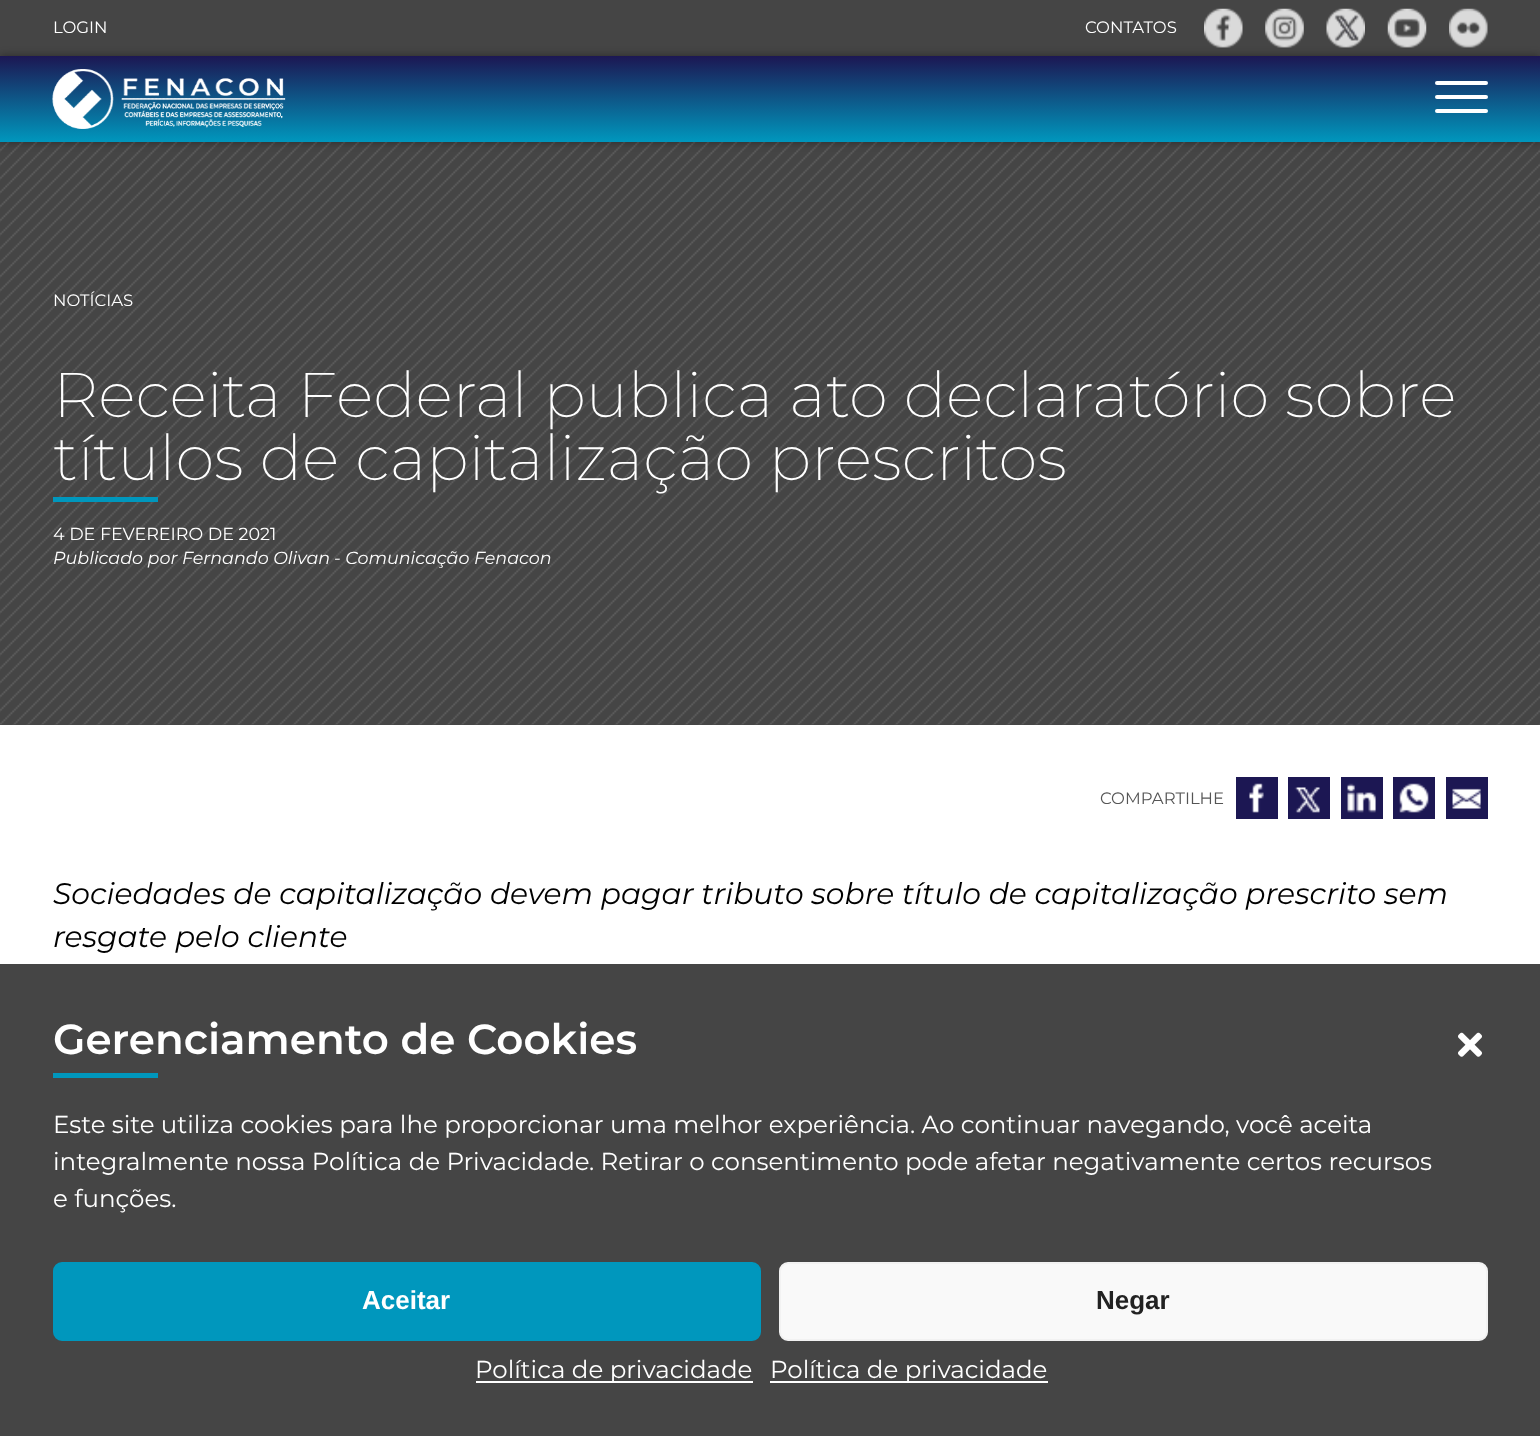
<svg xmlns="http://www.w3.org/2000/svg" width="1540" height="1436">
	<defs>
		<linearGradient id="g1" gradientUnits="userSpaceOnUse" x1="770" y1="142" x2="770" y2="56"><stop offset="0" stop-color="#0097BD" /><stop offset="1" stop-color="#1C1753" /></linearGradient>
	</defs>
	<rect width="100%" height="100%" fill="#FFFFFF" />
	<rect x="0" y="0" width="1540" height="56" fill="#454545" />
	<g font-family="Montserrat" font-size="16.5" font-weight="100" fill="#FFFFFF">
		<text x="53" y="33">LOGIN</text>
		<text x="1085" y="33">CONTATOS</text>
	</g>
	<image x="1204" y="8" width="39" height="40" href="assets/img1.png" />
	<image x="1265" y="8" width="39" height="40" href="assets/img2.png" />
	<image x="1326" y="8" width="39" height="40" href="assets/img3.png" />
	<image x="1387" y="8" width="40" height="40" href="assets/img4.png" />
	<image x="1449" y="8" width="39" height="40" href="assets/img5.png" />
	<rect x="0" y="142" width="1540" height="583" fill="#454545" />
	<image x="0" y="142" width="1540" height="583" href="assets/img7.png" />
	<rect x="0" y="56" width="1540" height="86" fill="#000000" fill-opacity="0.4" filter="blur(4.5px)" />
	<rect x="0" y="56" width="1540" height="86" fill="url(#g1)" />
	<image x="52" y="69" width="234" height="60" href="assets/img6.png" />
	<rect x="1435" y="95" width="53" height="4" rx="2" fill="#FFFFFF" />
	<rect x="1435" y="81" width="53" height="4" rx="2" fill="#FFFFFF" />
	<rect x="1435" y="109" width="53" height="4" rx="2" fill="#FFFFFF" />
	<text x="53" y="306" font-family="Montserrat" font-size="16.5" font-weight="100" fill="#FFFFFF">NOTÍCIAS</text>
	<g font-family="Montserrat" font-size="63" font-weight="200" fill="#FFFFFF">
		<text x="53" y="417">Receita Federal publica ato declaratório sobre</text>
		<text x="53" y="480">títulos de capitalização prescritos</text>
	</g>
	<rect x="53" y="497" width="105" height="5" fill="#0097BD" />
	<text x="53" y="540" font-family="Montserrat" font-size="17.5" font-weight="100" fill="#FFFFFF">4 DE FEVEREIRO DE 2021</text>
	<g font-family="Montserrat" font-size="17.5" font-style="italic" fill="#FFFFFF">
		<text x="53" y="564">Publicado por Fernando Olivan</text>
		<text x="334" y="564">- Comunicação Fenacon</text>
	</g>
	<text x="1100" y="804" font-family="Montserrat" font-size="16.5" font-weight="100" fill="#555555">COMPARTILHE</text>
	<rect x="1236" y="777" width="42" height="42" fill="#1C1753" />
	<image x="1249" y="783" width="15" height="30" href="assets/img8.png" />
	<rect x="1288" y="777" width="42" height="42" fill="#1C1753" />
	<image x="1294" y="787" width="26" height="26" href="assets/img9.png" />
	<rect x="1341" y="777" width="42" height="42" fill="#1C1753" />
	<image x="1347" y="783" width="29" height="30" href="assets/img10.png" />
	<rect x="1393" y="777" width="42" height="42" fill="#1C1753" />
	<image x="1399" y="783" width="30" height="30" href="assets/img11.png" />
	<rect x="1446" y="777" width="42" height="42" fill="#1C1753" />
	<image x="1452" y="788" width="29" height="21" href="assets/img12.png" />
	<g font-family="Montserrat" font-size="29.75" font-style="italic" fill="#000000">
		<text x="53" y="904">Sociedades de capitalização devem pagar tributo sobre título de capitalização prescrito sem</text>
		<text x="53" y="947">resgate pelo cliente</text>
	</g>
	<rect x="0" y="964" width="1540" height="472" fill="#454545" />
	<text x="53" y="1054" font-family="Montserrat" font-size="42" font-weight="600" fill="#FFFFFF">Gerenciamento de Cookies</text>
	<rect x="53" y="1073" width="105" height="5" fill="#0097BD" />
	<image x="1458" y="1032" width="24" height="25" href="assets/img13.png" />
	<g font-family="Montserrat" font-size="24.5" font-weight="100" fill="#FFFFFF">
		<text x="53" y="1133">Este site utiliza cookies para lhe proporcionar uma melhor experiência. Ao continuar navegando, você aceita</text>
		<text x="53" y="1170">integralmente nossa Política de Privacidade</text>
		<text x="589" y="1170">. Retirar o consentimento pode afetar negativamente certos recursos</text>
		<text x="53" y="1207">e funções.</text>
	</g>
	<rect x="54" y="1263" width="706" height="77" rx="8" fill="#0097BD" stroke="#0097BD" stroke-width="2" />
	<text x="362" y="1309" font-family="Liberation Sans" font-size="26" font-weight="700" fill="#FFFFFF">Aceitar</text>
	<rect x="780" y="1263" width="707" height="77" rx="8" fill="#F9F9F9" stroke="#F2F2F2" stroke-width="2" />
	<text x="1096" y="1309" font-family="Liberation Sans" font-size="26" font-weight="700" fill="#222222">Negar</text>
	<rect x="476" y="1381" width="277" height="2" fill="#FFFFFF" />
	<text x="475" y="1378" font-family="Montserrat" font-size="24.5" font-weight="100" fill="#FFFFFF">Política de privacidade</text>
	<rect x="770" y="1381" width="278" height="2" fill="#FFFFFF" />
	<text x="770" y="1378" font-family="Montserrat" font-size="24.5" font-weight="100" fill="#FFFFFF">Política de privacidade</text>
</svg>
